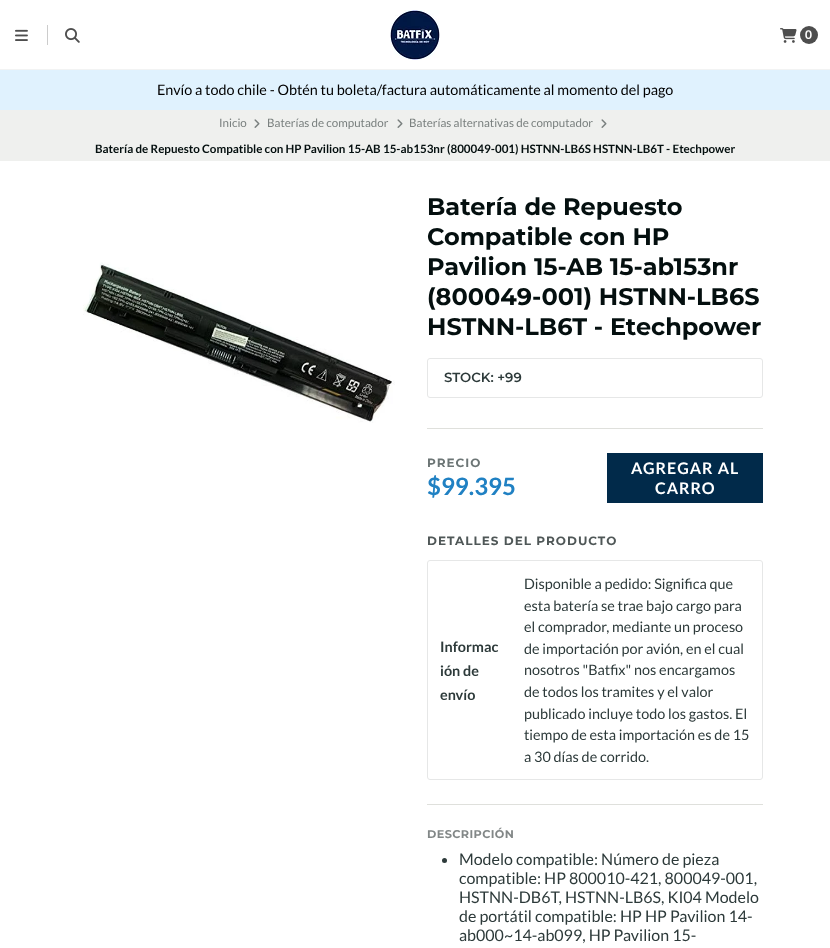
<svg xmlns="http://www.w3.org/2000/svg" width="830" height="948">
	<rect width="100%" height="100%" fill="#FFFFFF" />
	<rect x="0" y="69" width="830" height="1" fill="#F2F3F3" />
	<rect x="47" y="25" width="1" height="20" fill="#CCCCCC" />
	<image x="15" y="29" width="13" height="12" href="assets/img1.png" />
	<image x="65" y="28" width="15" height="15" href="assets/img2.png" />
	<image x="390" y="10" width="50" height="50" href="assets/img3.png" />
	<image x="780" y="28" width="17" height="15" href="assets/img4.png" />
	<circle cx="809" cy="35" r="9" fill="#4D4D4D" />
	<text x="805" y="39" font-family="Lato" font-size="12" font-weight="700" fill="#FFFFFF">0</text>
	<rect x="0" y="70" width="830" height="40" fill="#E0F2FE" />
	<text x="157" y="95" font-family="Lato" font-size="14.4" fill="#010101">Envío a todo chile - Obtén tu boleta/factura automáticamente al momento del pago</text>
	<rect x="0" y="110" width="830" height="51" fill="#EFF0EE" />
	<text x="219" y="127" font-family="Lato" font-size="11.6" fill="#7A807F">Inicio</text>
	<image x="254" y="119" width="6" height="9" href="assets/img5.png" />
	<text x="267" y="127" font-family="Lato" font-size="11.6" fill="#7A807F">Baterías de computador</text>
	<image x="397" y="119" width="6" height="9" href="assets/img5.png" />
	<text x="409" y="127" font-family="Lato" font-size="11.6" fill="#7A807F">Baterías alternativas de computador</text>
	<image x="601" y="119" width="6" height="9" href="assets/img5.png" />
	<text x="95" y="153" font-family="Lato" font-size="11.6" font-weight="700" fill="#040F0F">Batería de Repuesto Compatible con HP Pavilion 15-AB 15-ab153nr (800049-001) HSTNN-LB6S HSTNN-LB6T - Etechpower</text>
	<image x="83" y="262" width="312" height="161" href="assets/img6.png" />
	<g font-family="Montserrat" font-size="24" font-weight="700" fill="#040F0F">
		<text x="427" y="215">Batería de Repuesto</text>
		<text x="427" y="245">Compatible con HP</text>
		<text x="427" y="275">Pavilion 15-AB 15-ab153nr</text>
		<text x="427" y="305">(800049-001) HSTNN-LB6S</text>
		<text x="427" y="335">HSTNN-LB6T - Etechpower</text>
	</g>
	<rect x="427.5" y="358.5" width="335" height="39" rx="2.5" fill="none" stroke="#E6E7E7" />
	<text x="444" y="382" font-family="Montserrat" font-size="13.25" font-weight="600" fill="#2D3A3A">STOCK: +99</text>
	<rect x="427" y="428" width="336" height="1" fill="#DFE0DC" />
	<text x="427" y="467" font-family="Montserrat" font-size="12" font-weight="700" letter-spacing="1" fill="#6C7575">PRECIO</text>
	<text x="427" y="495" font-family="Lato" font-size="24" font-weight="700" fill="#2081C3">$99.395</text>
	<rect x="607" y="453" width="156" height="50" fill="#012A4A" />
	<g font-family="Lato" font-size="16" font-weight="700" letter-spacing="1" fill="#FFFFFF">
		<text x="631" y="474">AGREGAR AL</text>
		<text x="655" y="494">CARRO</text>
	</g>
	<text x="427" y="545" font-family="Montserrat" font-size="12" font-weight="700" letter-spacing="1" fill="#4F5757">DETALLES DEL PRODUCTO</text>
	<rect x="427.5" y="560.5" width="335" height="219" rx="2.5" fill="none" stroke="#E6E7E7" />
	<g font-family="Lato" font-size="14.4" font-weight="700" fill="#2D3A3A">
		<text x="440" y="652">Informac</text>
		<text x="440" y="676">ión de</text>
		<text x="440" y="700">envío</text>
	</g>
	<g font-family="Lato" font-size="14.4" fill="#2D3A3A">
		<text x="524" y="589">Disponible a pedido: Significa que</text>
		<text x="524" y="611">esta batería se trae bajo cargo para</text>
		<text x="524" y="632">el comprador, mediante un proceso</text>
		<text x="524" y="654">de importación por avión, en el cual</text>
		<text x="524" y="675">nosotros "Batfix" nos encargamos</text>
		<text x="524" y="697">de todos los tramites y el valor</text>
		<text x="524" y="719">publicado incluye todo los gastos. El</text>
		<text x="524" y="740">tiempo de esta importación es de 15</text>
		<text x="524" y="762">a 30 días de corrido.</text>
	</g>
	<rect x="427" y="804" width="336" height="1" fill="#DFE0DC" />
	<text x="427" y="838" font-family="Montserrat" font-size="11.25" font-weight="700" letter-spacing="0.4" fill="#828787">DESCRIPCIÓN</text>
	<circle cx="444.5" cy="860.5" r="2.5" fill="#2D3A3A" />
	<g font-family="Lato" font-size="16" fill="#2D3A3A">
		<text x="459" y="865">Modelo compatible: Número de pieza</text>
		<text x="459" y="884">compatible: HP 800010-421, 800049-001,</text>
		<text x="459" y="903">HSTNN-DB6T, HSTNN-LB6S, KI04 Modelo</text>
		<text x="459" y="922">de portátil compatible: HP HP Pavilion 14-</text>
		<text x="459" y="941">ab000~14-ab099, HP Pavilion 15-</text>
	</g>
</svg>
